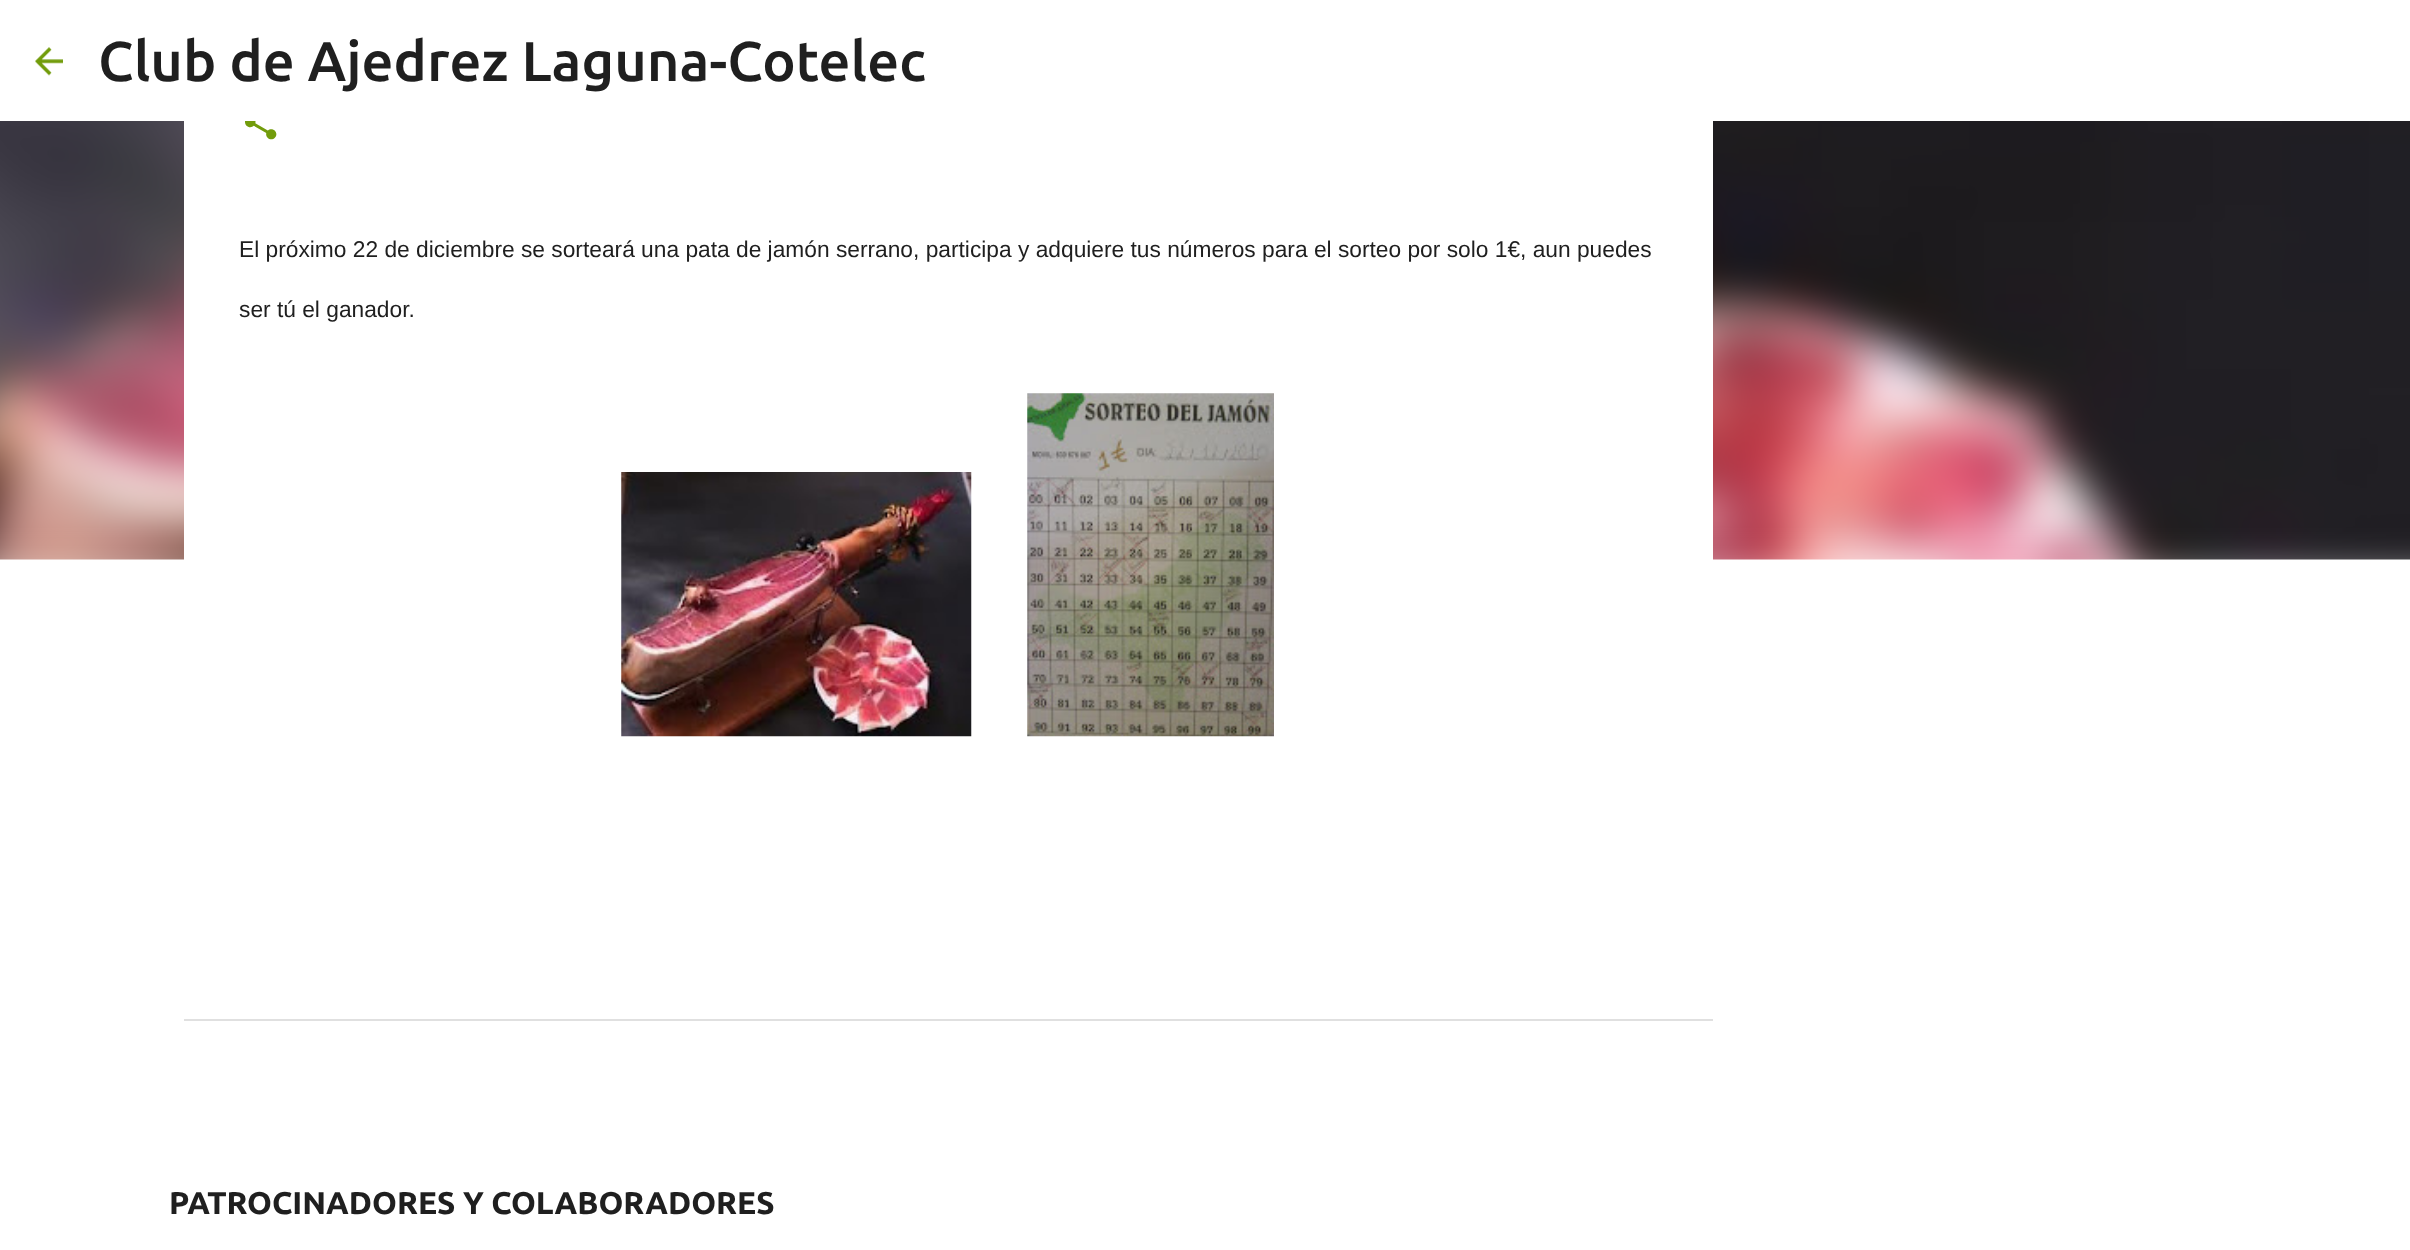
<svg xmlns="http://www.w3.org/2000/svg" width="2410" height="1250">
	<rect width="100%" height="100%" fill="#FFFFFF" />
	<image x="35" y="47" width="28" height="29" href="assets/img1.png" />
	<text x="98" y="81" font-family="Ubuntu" font-size="56" font-weight="500" fill="#1F1F1F">Club de Ajedrez Laguna-Cotelec</text>
	<image x="0" y="121" width="2410" height="439" href="assets/img5.png" />
	<rect x="184" y="121" width="1529" height="439" fill="#FFFFFF" />
	<image x="245" y="121" width="32" height="19" href="assets/img2.png" />
	<g font-family="Liberation Sans" font-size="22.75" fill="#1F1F1F">
		<text x="239" y="257">El próximo 22 de diciembre se sorteará una pata de jamón serrano, participa y adquiere tus números para el sorteo por solo 1€, aun puedes</text>
		<text x="239" y="317">ser tú el ganador.</text>
	</g>
	<image x="621" y="472" width="351" height="265" href="assets/img3.png" />
	<image x="1027" y="393" width="247" height="344" href="assets/img4.png" />
	<rect x="184" y="1019" width="1529" height="2" fill="#E0E0E0" />
	<text x="169" y="1214" font-family="Ubuntu" font-size="31.5" font-weight="700" fill="#1F1F1F">PATROCINADORES Y COLABORADORES</text>
</svg>
